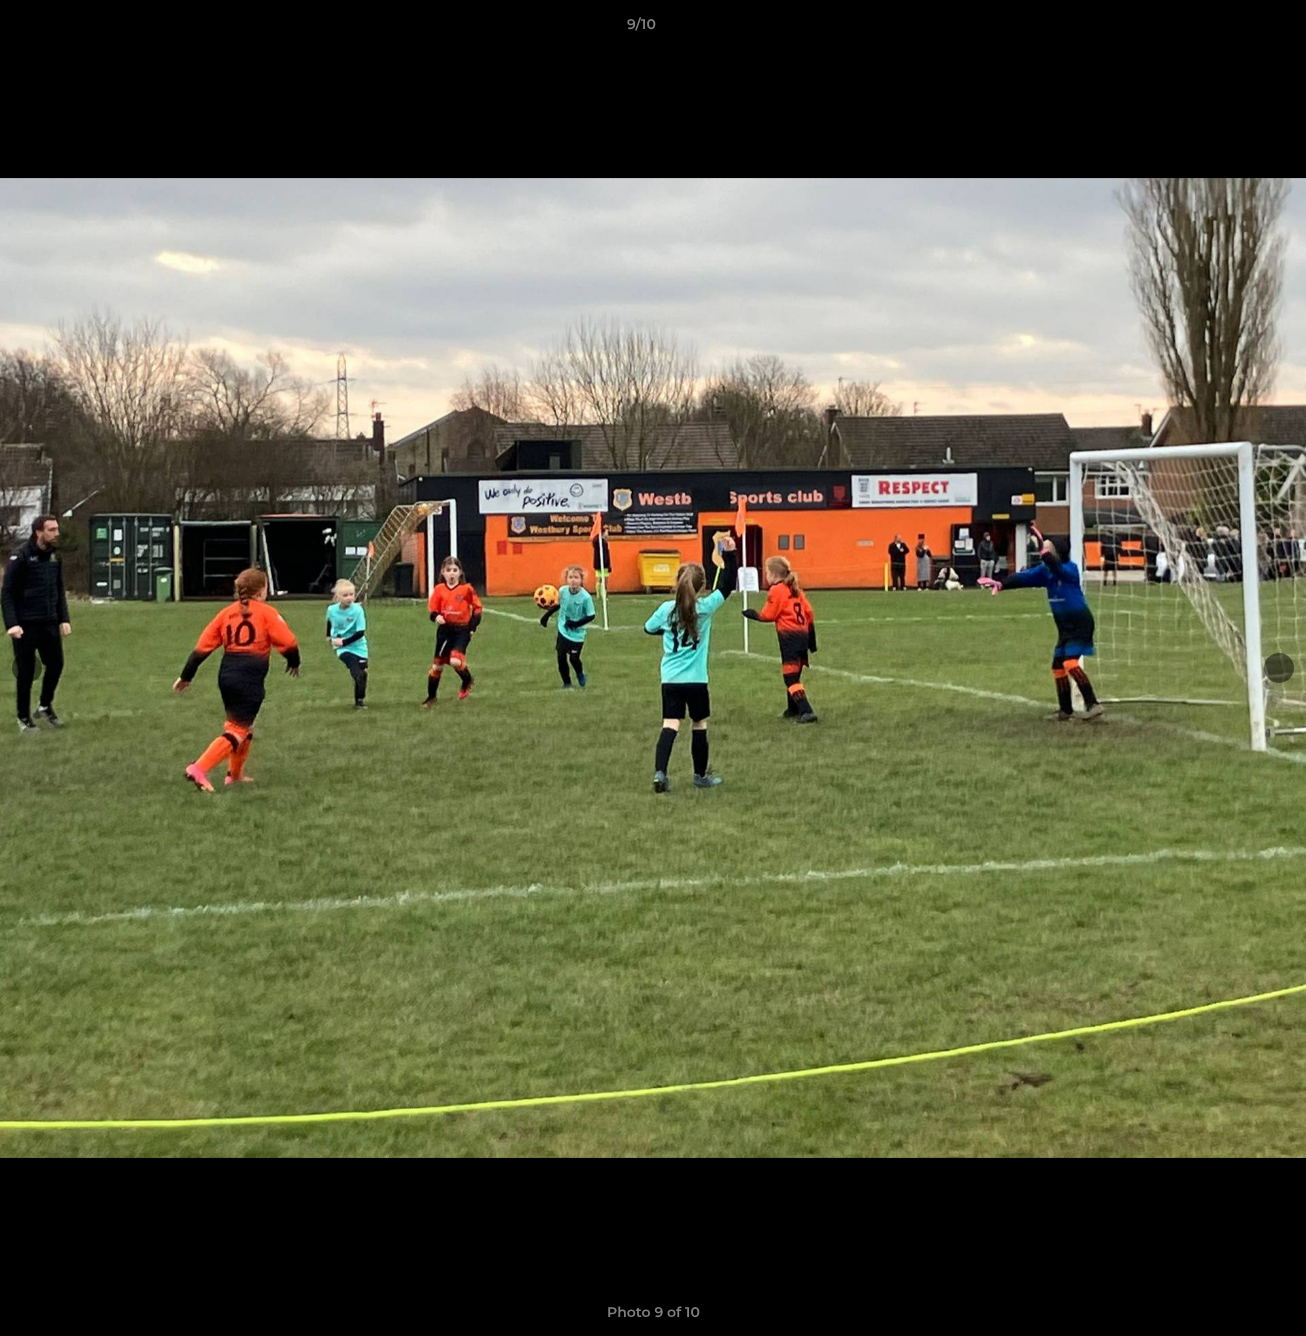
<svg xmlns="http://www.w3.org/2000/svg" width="1306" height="1336">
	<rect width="100%" height="100%" fill="#000000" />
	<text x="627" y="29" font-family="Montserrat" font-size="14" font-weight="600" fill="#808080">9/10</text>
	<image x="0" y="178" width="1306" height="980" href="assets/img1.png" />
	<circle cx="27" cy="668" r="15" fill="#000000" fill-opacity="0.5" />
	<circle cx="1279" cy="668" r="15" fill="#000000" fill-opacity="0.5" />
	<text x="607" y="1317" font-family="Montserrat" font-size="14" font-weight="600" fill="#808080">Photo 9 of 10</text>
</svg>
